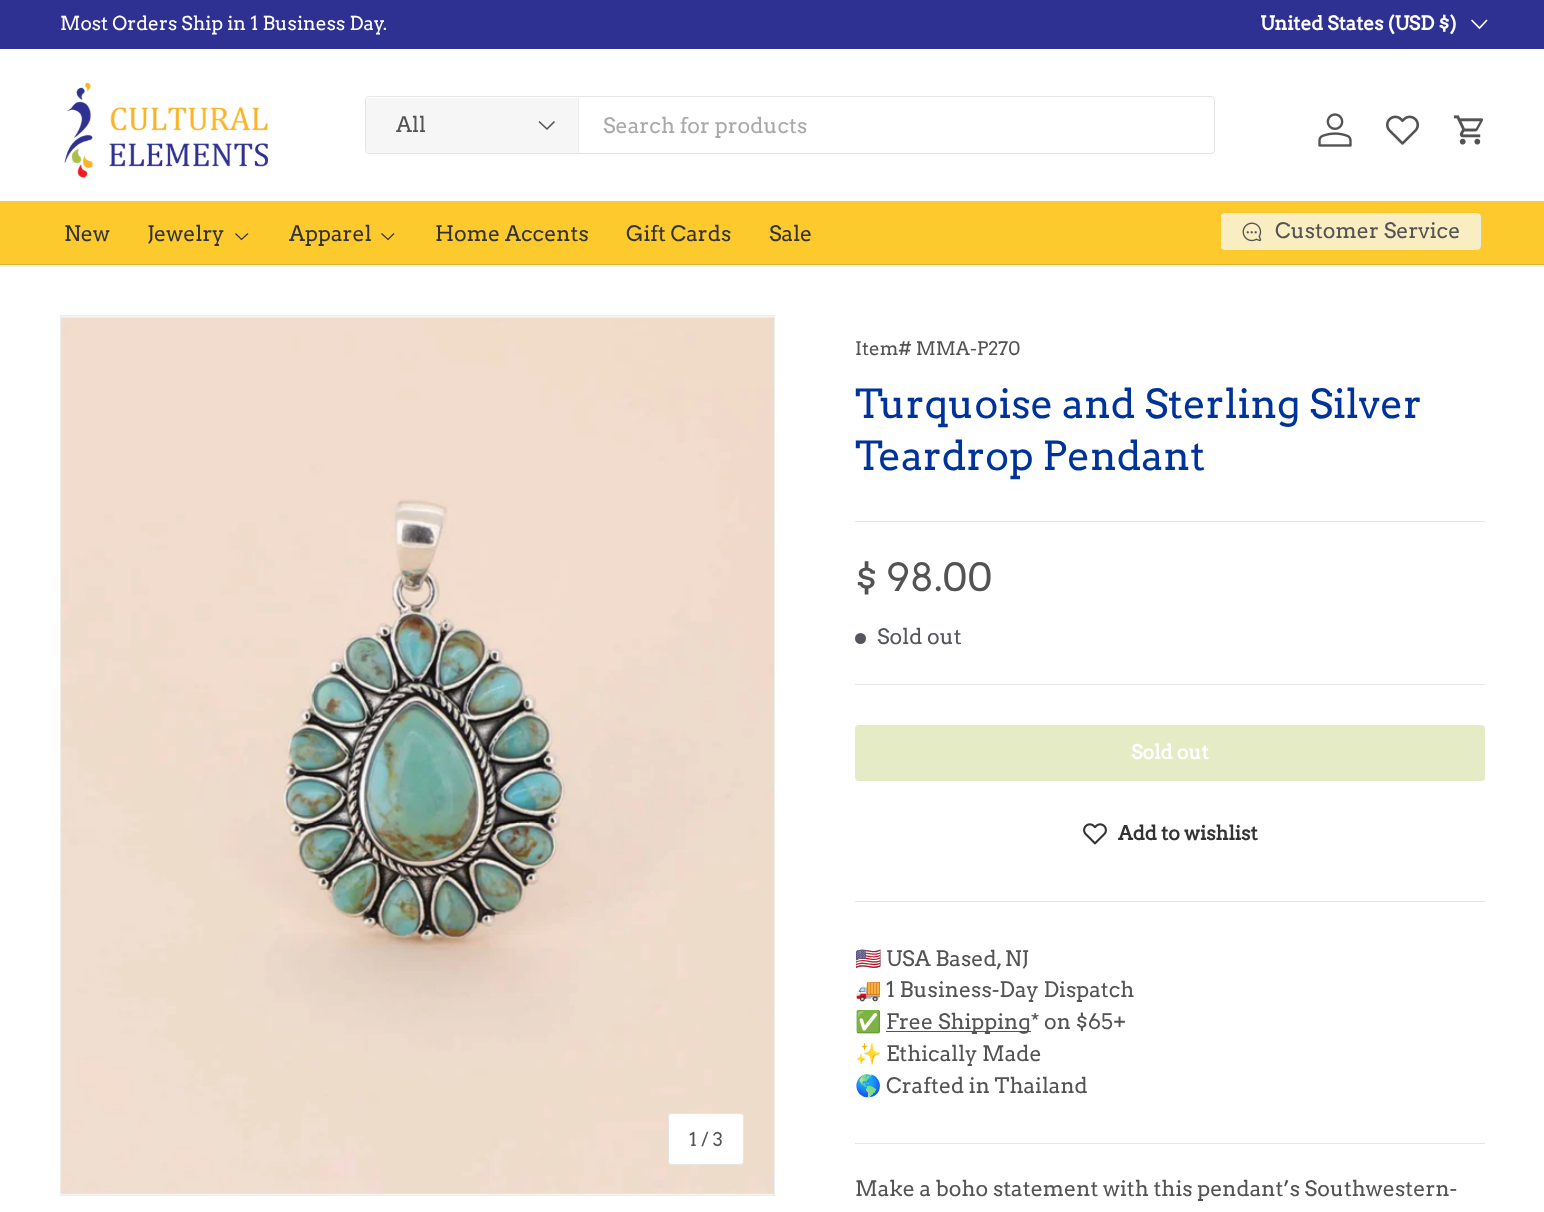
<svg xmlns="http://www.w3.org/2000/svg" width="1544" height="1212">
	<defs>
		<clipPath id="clip1"><rect x="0" y="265" width="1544" height="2" /></clipPath>
		<clipPath id="clip2"><rect x="1221" y="213" width="260" height="37" rx="4" /></clipPath>
		<linearGradient id="g1" gradientUnits="userSpaceOnUse" x1="726" y1="140" x2="1462" y2="323"><stop offset="0.6" stop-color="#E6DCBC" /><stop offset="0.6" stop-color="#FBEDC2" /><stop offset="1" stop-color="#FBEDC2" /></linearGradient>
		<linearGradient id="g2" gradientUnits="userSpaceOnUse" x1="904" y1="530" x2="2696" y2="977"><stop offset="0.6" stop-color="#E5EBC5" /><stop offset="0.6" stop-color="#DDE6B6" /><stop offset="1" stop-color="#DDE6B6" /></linearGradient>
	</defs>
	<rect width="100%" height="100%" fill="#FFFFFF" />
	<g clip-path="url(#clip1)">
		<rect x="-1" y="48" width="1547" height="218" fill="#000000" fill-opacity="0.08" filter="blur(2px)" />
	</g>
	<rect x="0" y="0" width="1544" height="49" fill="#2E3092" />
	<text x="60" y="30" font-family="Arvo" font-size="19.1" fill="#FFFFFF">Most Orders Ship in 1 Business Day.</text>
	<text x="1260" y="30" font-family="Arvo" font-size="19.1" font-weight="700" fill="#FFFFFF">United States (USD $)</text>
	<path d="M1487 20L1479.5 28L1471.5 20" fill="none" stroke="#FFFFFF" stroke-width="1.6" />
	<image x="64" y="82" width="205" height="96" href="assets/img1.png" />
	<rect x="365.5" y="96.5" width="849" height="57" rx="3.5" fill="none" stroke="#E5E5E5" />
	<path d="M370 98H579V153H370C368 153 366 151 366 149V102C366 100 368 98 370 98Z" fill="#F6F6F6" />
	<rect x="578" y="98" width="1" height="55" fill="#EEEEEE" />
	<text x="396" y="132" font-family="Arvo" font-size="21.25" fill="#535353">All</text>
	<path d="M554.5 121.5L547 129L539 121.5" fill="none" stroke="#535353" stroke-width="1.6" />
	<text x="603" y="133" font-family="Arvo" font-size="21.25" fill="#A9A9A9">Search for products</text>
	<image x="1318" y="113" width="34" height="34" href="assets/img2.png" />
	<image x="1386" y="115" width="33" height="30" href="assets/img3.png" />
	<image x="1453" y="115" width="31" height="30" href="assets/img4.png" />
	<rect x="0" y="201" width="1544" height="63" fill="#FCCA2C" />
	<g font-family="Arvo" font-size="21.25" fill="#333333">
		<text x="64" y="241">New</text>
		<text x="147" y="241">Jewelry</text>
	</g>
	<path d="M248 233.5L241.5 239.5L235.5 233.5" fill="none" stroke="#333333" stroke-width="1.2" />
	<text x="289" y="241" font-family="Arvo" font-size="21.25" fill="#333333">Apparel</text>
	<path d="M394 233.5L388 239.5L381.5 233.5" fill="none" stroke="#333333" stroke-width="1.2" />
	<g font-family="Arvo" font-size="21.25" fill="#333333">
		<text x="435" y="241">Home Accents</text>
		<text x="626" y="241">Gift Cards</text>
		<text x="769" y="241">Sale</text>
	</g>
	<g clip-path="url(#clip2)">
		<rect x="1221" y="214" width="259" height="35" fill="url(#g1)" />
	</g>
	<rect x="1221.5" y="213.5" width="259" height="36" rx="3.5" fill="none" stroke="#EBEBEB" />
	<image x="1242" y="222" width="20" height="20" href="assets/img5.png" />
	<text x="1275" y="238" font-family="Arvo" font-size="21.25" fill="#535353">Customer Service</text>
	<rect x="0" y="264" width="1544" height="1" fill="#DEB32D" />
	<rect x="60.5" y="315.5" width="714" height="880" fill="#F4F4F4" stroke="#EEEEEE" />
	<image x="61" y="317" width="713" height="877" href="assets/img6.png" />
	<rect x="668" y="1113" width="76" height="52" rx="4" fill="#FFFFFF" />
	<rect x="668.5" y="1113.5" width="75" height="51" rx="3.5" fill="none" stroke="#535353" stroke-opacity="0.15" />
	<g font-family="Arvo" font-size="18.75" fill="#535353">
		<text x="689" y="1146">1 / 3</text>
		<text x="855" y="355">Item# MMA-P270</text>
	</g>
	<g font-family="Arvo" font-size="40" fill="#003399">
		<text x="855" y="418">Turquoise and Sterling Silver</text>
		<text x="855" y="470">Teardrop Pendant</text>
	</g>
	<rect x="855" y="521" width="630" height="1" fill="#E5E5E5" />
	<text x="855" y="591" font-family="Arvo" font-size="38.5" fill="#535353">$ 98.00</text>
	<circle cx="860.5" cy="638.5" r="5.5" fill="#53565A" />
	<text x="877" y="644" font-family="Arvo" font-size="21.25" fill="#53565A">Sold out</text>
	<rect x="855" y="684" width="630" height="1" fill="#E5E5E5" />
	<rect x="855" y="725" width="630" height="56" rx="4" fill="url(#g2)" />
	<text x="1131" y="759" font-family="Arvo" font-size="19.5" font-weight="700" fill="#FFFFFF">Sold out</text>
	<image x="1083" y="823" width="24" height="22" href="assets/img7.png" />
	<text x="1118" y="840" font-family="Arvo" font-size="19.5" font-weight="700" fill="#333333">Add to wishlist</text>
	<rect x="855" y="901" width="630" height="1" fill="#E5E5E5" />
	<text x="855" y="966" font-family="Noto Color Emoji" font-size="21.25" fill="#535353">🇺🇸</text>
	<text x="886" y="966" font-family="Arvo" font-size="21.25" fill="#535353">USA Based, NJ</text>
	<text x="855" y="997" font-family="Noto Color Emoji" font-size="21.25" font-weight="700" fill="#535353">🚚</text>
	<text x="886" y="997" font-family="Arvo" font-size="21.25" fill="#535353">1 Business-Day Dispatch</text>
	<text x="855" y="1029" font-family="Noto Color Emoji" font-size="21.25" fill="#535353">✅</text>
	<rect x="886" y="1031" width="145" height="1" fill="#535353" />
	<text x="886" y="1029" font-family="Arvo" font-size="21.25" fill="#535353">Free Shipping* on $65+</text>
	<text x="855" y="1061" font-family="Noto Color Emoji" font-size="21.25" fill="#535353">✨</text>
	<text x="886" y="1061" font-family="Arvo" font-size="21.25" fill="#535353">Ethically Made</text>
	<text x="855" y="1093" font-family="Noto Color Emoji" font-size="21.25" fill="#535353">🌎</text>
	<text x="886" y="1093" font-family="Arvo" font-size="21.25" fill="#535353">Crafted in Thailand</text>
	<rect x="855" y="1143" width="630" height="1" fill="#E5E5E5" />
	<text x="855" y="1196" font-family="Arvo" font-size="21.25" fill="#535353">Make a boho statement with this pendant’s Southwestern-</text>
</svg>
